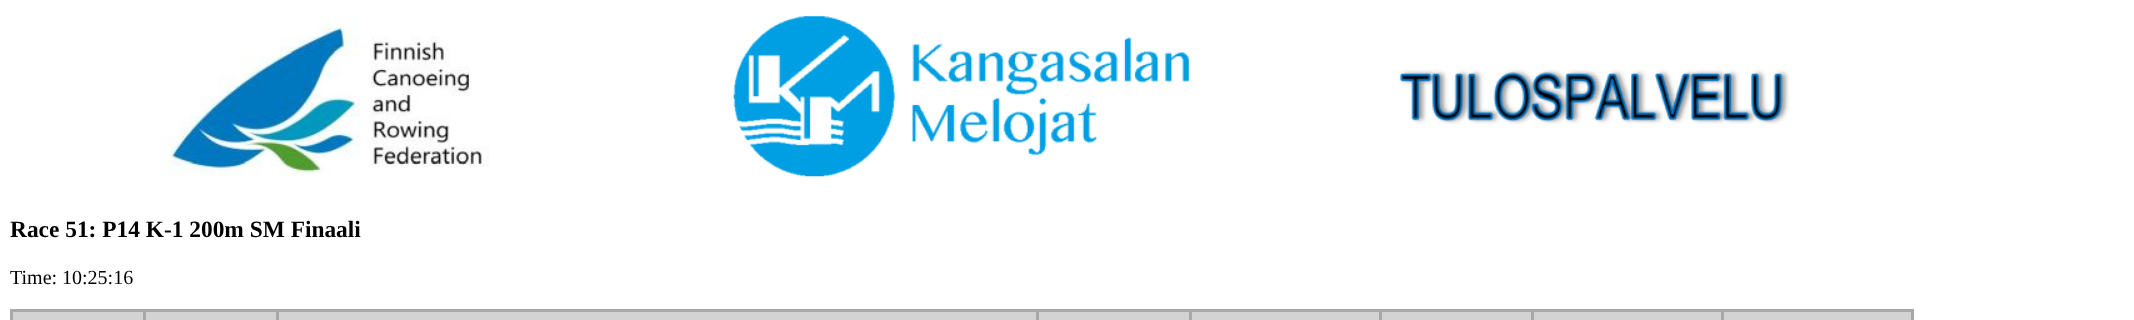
<svg xmlns="http://www.w3.org/2000/svg" width="2134" height="320">
	<rect width="100%" height="100%" fill="#FFFFFF" />
	<image x="160" y="16" width="330" height="160" href="assets/img1.png" />
	<image x="733" y="16" width="456" height="161" href="assets/img2.png" />
	<image x="1399" y="69" width="390" height="55" href="assets/img3.png" />
	<text x="10" y="237" font-family="Liberation Serif" font-size="23.4" font-weight="700" fill="#000000">Race 51: P14 K-1 200m SM Finaali</text>
	<text x="10" y="284" font-family="Liberation Serif" font-size="20" fill="#000000">Time: 10:25:16</text>
	<rect x="10" y="309" width="1904" height="3" fill="#A9A9A9" />
	<rect x="1911" y="309" width="3" height="11" fill="#A9A9A9" />
	<rect x="10" y="309" width="3" height="11" fill="#A9A9A9" />
	<rect x="13" y="312" width="130" height="8" fill="#D3D3D3" />
	<rect x="146" y="312" width="130" height="8" fill="#D3D3D3" />
	<rect x="143" y="309" width="3" height="11" fill="#A9A9A9" />
	<rect x="279" y="312" width="757" height="8" fill="#D3D3D3" />
	<rect x="276" y="309" width="3" height="11" fill="#A9A9A9" />
	<rect x="1039" y="312" width="150" height="8" fill="#D3D3D3" />
	<rect x="1036" y="309" width="3" height="11" fill="#A9A9A9" />
	<rect x="1192" y="312" width="187" height="8" fill="#D3D3D3" />
	<rect x="1189" y="309" width="3" height="11" fill="#A9A9A9" />
	<rect x="1382" y="312" width="149" height="8" fill="#D3D3D3" />
	<rect x="1379" y="309" width="3" height="11" fill="#A9A9A9" />
	<rect x="1534" y="312" width="187" height="8" fill="#D3D3D3" />
	<rect x="1531" y="309" width="3" height="11" fill="#A9A9A9" />
	<rect x="1724" y="312" width="187" height="8" fill="#D3D3D3" />
	<rect x="1721" y="309" width="3" height="11" fill="#A9A9A9" />
</svg>
